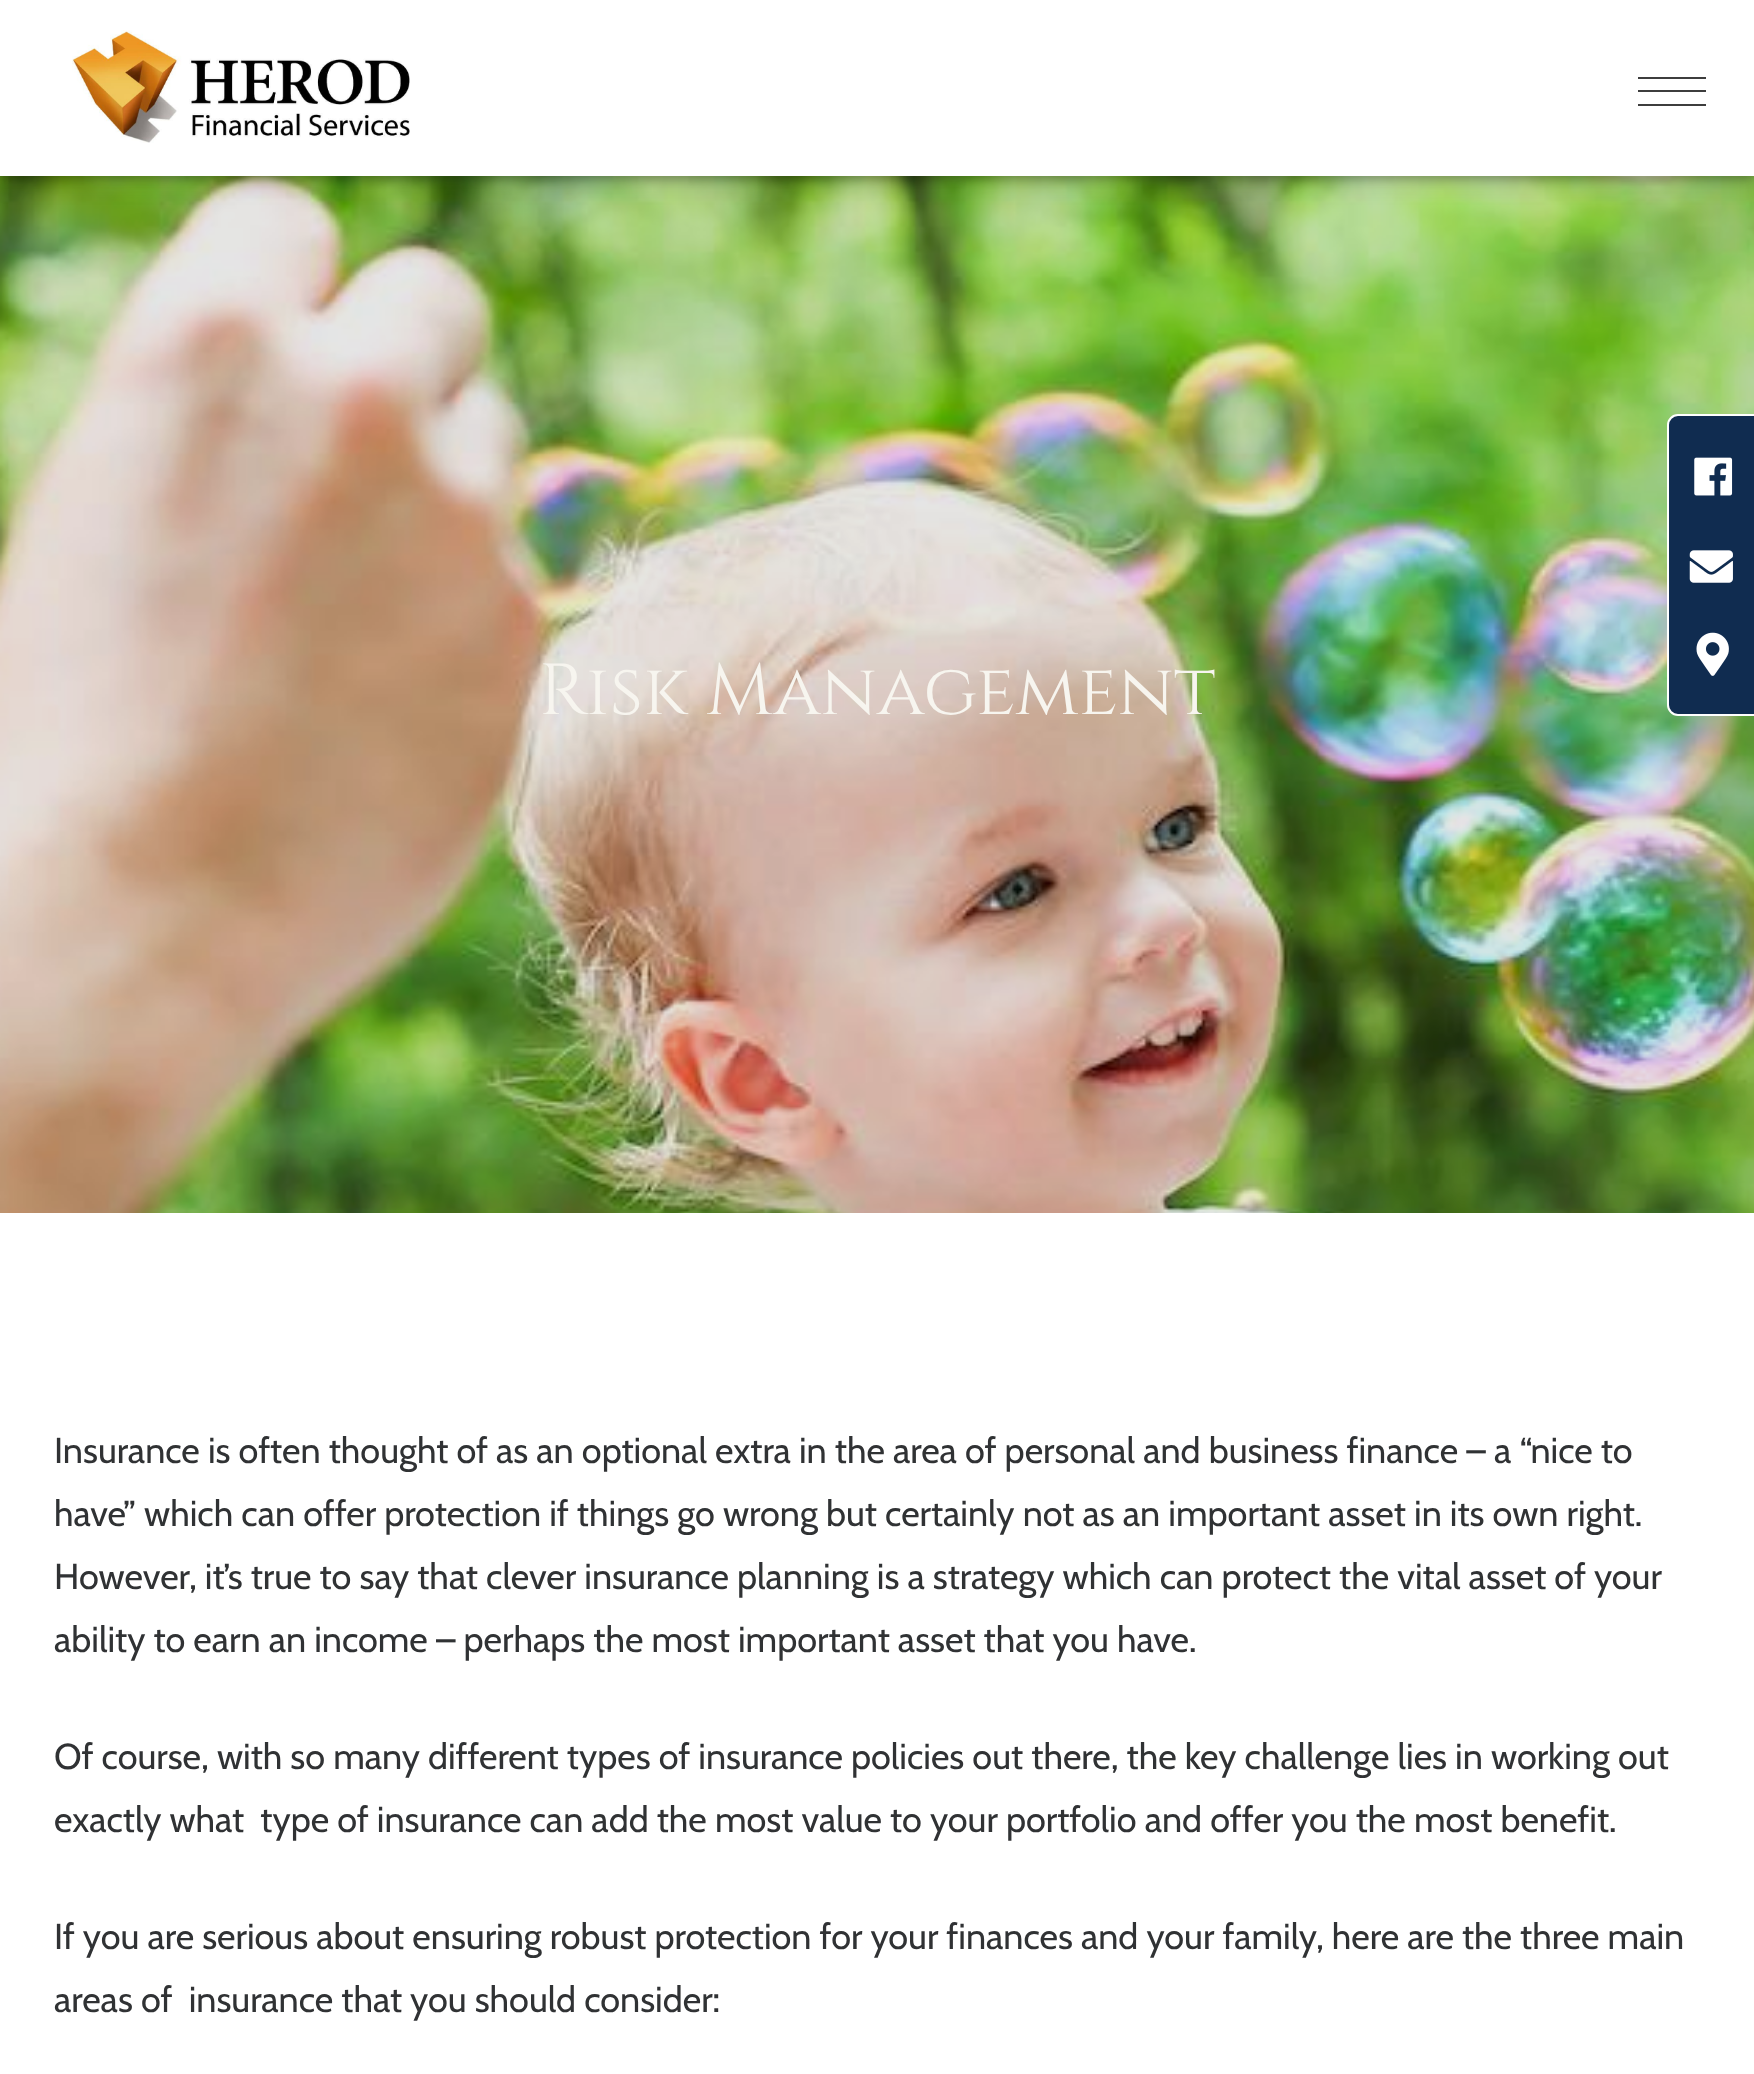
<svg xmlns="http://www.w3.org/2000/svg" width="1754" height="2074">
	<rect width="100%" height="100%" fill="#FFFFFF" />
	<image x="0" y="176" width="1754" height="1037" href="assets/img2.png" />
	<rect x="0" y="7" width="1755" height="175" fill="#000000" fill-opacity="0.19" filter="blur(11px)" />
	<rect x="0" y="5" width="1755" height="175" fill="#000000" fill-opacity="0.2" filter="blur(4.5px)" />
	<rect x="0" y="0" width="1754" height="176" fill="#FFFFFF" />
	<image x="72" y="30" width="338" height="113" href="assets/img1.png" />
	<rect x="1638" y="90" width="68" height="2" fill="#3D3D3D" />
	<rect x="1638" y="77" width="68" height="2" fill="#3D3D3D" />
	<rect x="1638" y="104" width="68" height="2" fill="#3D3D3D" />
	<text x="539" y="714" font-family="Cinzel" font-size="72" fill="#F7F5EF">Risk Management</text>
	<path d="M1678 415H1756V715H1678C1672.5 715 1668 710.5 1668 705V425C1668 419.5 1672.5 415 1678 415Z" fill="#102C50" stroke="#FFFFFF" stroke-width="2" />
	<image x="1694" y="457" width="39" height="39" href="assets/img3.png" />
	<image x="1689" y="550" width="44" height="33" href="assets/img4.png" />
	<image x="1696" y="632" width="33" height="44" href="assets/img5.png" />
	<g font-family="Cabin" font-size="36" fill="#303234">
		<text x="54" y="1463">Insurance is often thought of as an optional extra in the area of personal and business finance – a “nice to</text>
		<text x="54" y="1526">have” which can offer protection if things go wrong but certainly not as an important asset in its own right.</text>
		<text x="54" y="1589">However, it’s true to say that clever insurance planning is a strategy which can protect the vital asset of your</text>
		<text x="54" y="1652">ability to earn an income – perhaps the most important asset that you have.</text>
		<text x="54" y="1769">Of course, with so many different types of insurance policies out there, the key challenge lies in working out</text>
		<text x="54" y="1832" xml:space="preserve">exactly what  type of insurance can add the most value to your portfolio and offer you the most benefit.</text>
		<text x="54" y="1949">If you are serious about ensuring robust protection for your finances and your family, here are the three main</text>
		<text x="54" y="2012" xml:space="preserve">areas of  insurance that you should consider:</text>
	</g>
</svg>
